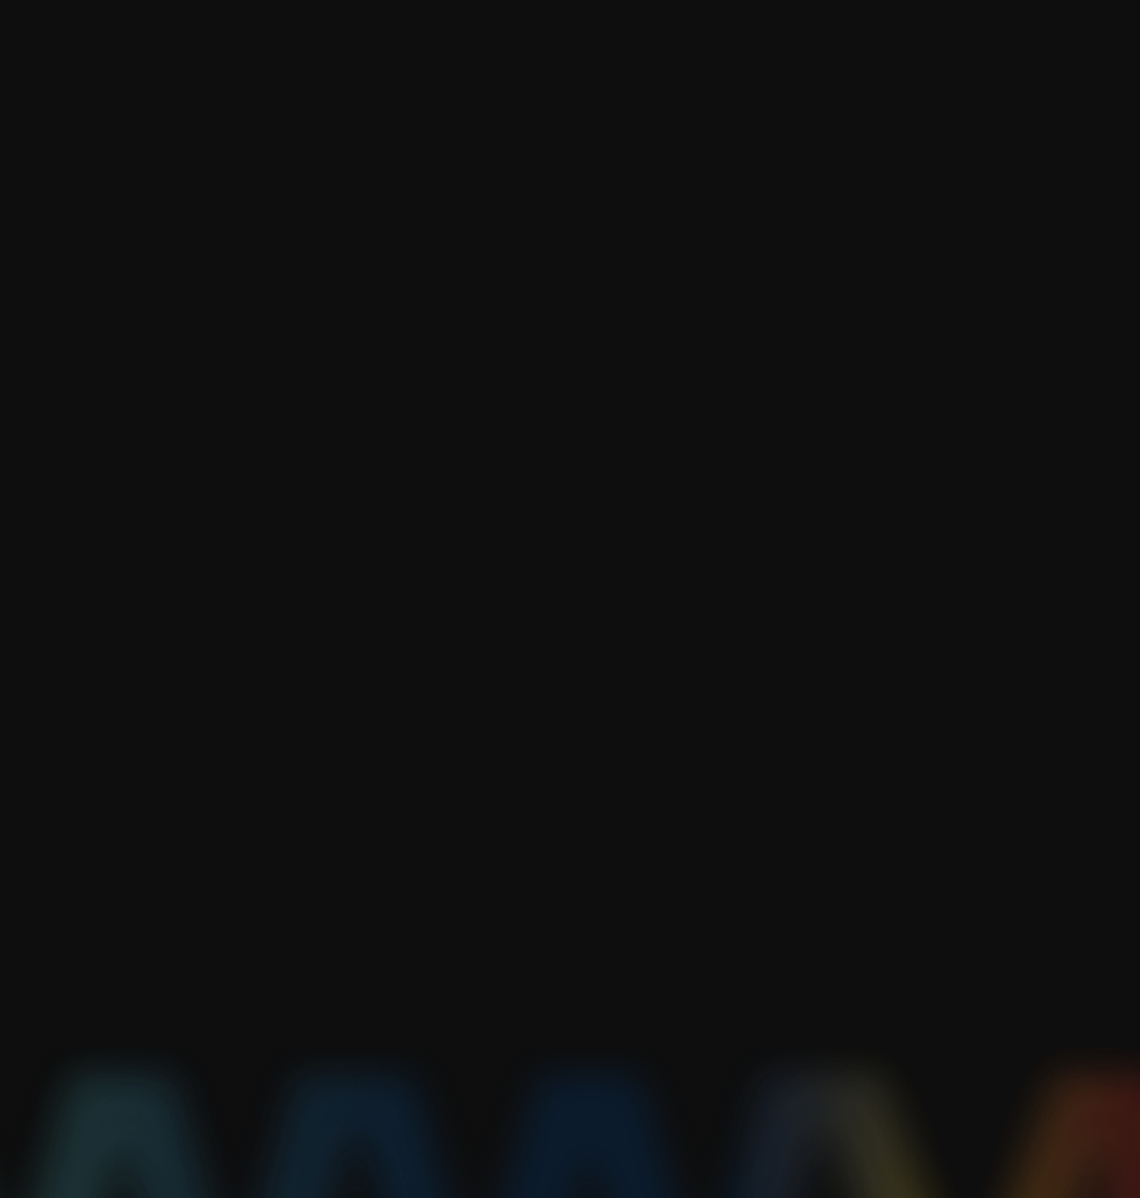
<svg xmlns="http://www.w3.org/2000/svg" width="1140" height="1198">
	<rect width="100%" height="100%" fill="#0E0E0E" />
	<image x="0" y="1048" width="1140" height="150" href="assets/img1.png" />
</svg>
